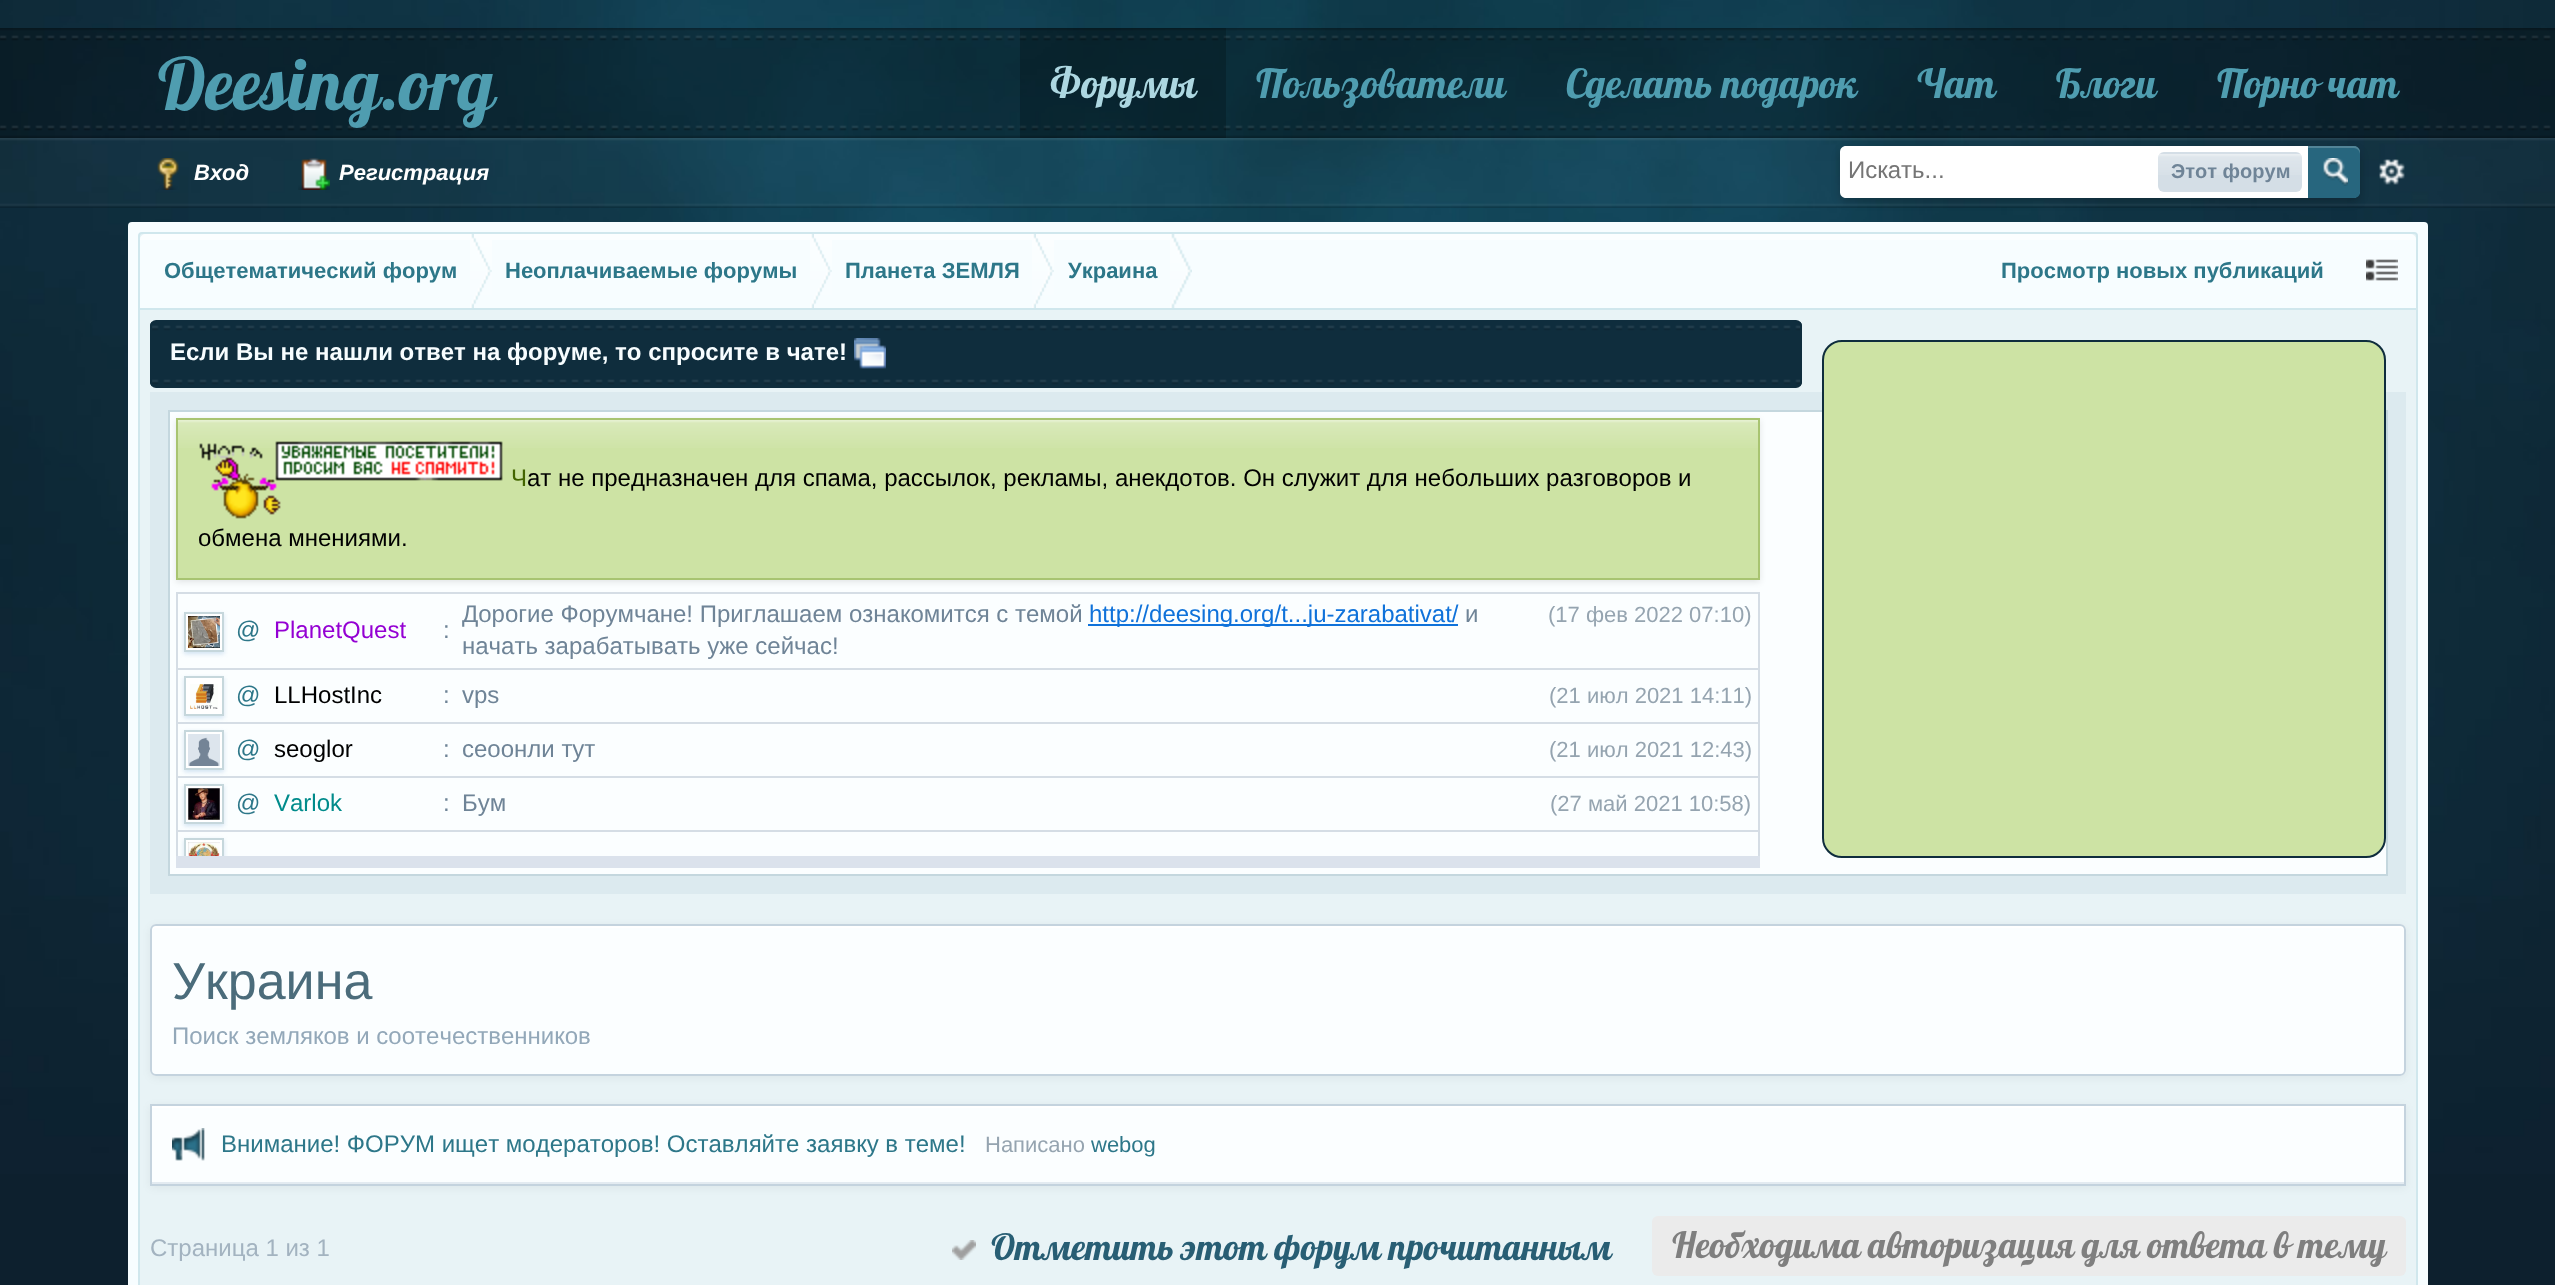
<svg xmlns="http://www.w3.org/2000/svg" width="2555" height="1285">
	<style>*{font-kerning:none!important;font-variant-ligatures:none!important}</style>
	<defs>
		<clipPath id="clip1"><rect x="176" y="592" width="1584" height="264" /></clipPath>
		<clipPath id="clip2"><rect x="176" y="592" width="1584" height="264" /></clipPath>
	</defs>
	<rect width="100%" height="100%" fill="#0D202E" />
	<image x="0" y="0" width="2555" height="1174" href="assets/img1.png" />
	<image x="0" y="28" width="2555" height="110" href="assets/img2.png" />
	<text x="158" y="110" font-family="Lobster" font-size="72" fill="#4F9DB0">Deesing.org</text>
	<rect x="1020" y="28" width="206" height="110" fill="#000000" fill-opacity="0.2" />
	<text x="1050" y="98" font-family="Lobster" font-size="40" fill="#ADD7E1">Форумы</text>
	<g font-family="Lobster" font-size="40" fill="#4F9DB0">
		<text x="1256" y="98">Пользователи</text>
		<text x="1566" y="98">Сделать подарок</text>
		<text x="1917" y="98">Чат</text>
		<text x="2056" y="98">Блоги</text>
		<text x="2217" y="98">Порно чат</text>
	</g>
	<image x="0" y="138" width="2555" height="70" href="assets/img3.png" />
	<image x="157" y="158" width="22" height="32" href="assets/img4.png" />
	<text x="194" y="180" font-family="Liberation Sans" font-size="22" font-weight="700" font-style="italic" fill="#FFFFFF">Вход</text>
	<image x="298" y="158" width="32" height="32" href="assets/img5.png" />
	<text x="339" y="180" font-family="Liberation Sans" font-size="22" font-weight="700" font-style="italic" fill="#FFFFFF">Регистрация</text>
	<rect x="1840" y="150" width="520" height="52" rx="8" fill="#000000" fill-opacity="0.2" filter="blur(4px)" />
	<path d="M1846 146H2352C2356.5 146 2360 149.5 2360 154V190C2360 194.5 2356.5 198 2352 198H1846C1842.5 198 1840 195.5 1840 192V152C1840 148.5 1842.5 146 1846 146Z" fill="#FFFFFF" />
	<text x="1848" y="178" font-family="Liberation Sans" font-size="24" fill="#757575">Искать...</text>
	<rect x="2158" y="152" width="144" height="40" rx="6" fill="#D4DEE6" />
	<image x="2158" y="154" width="144" height="21" href="assets/img6.png" />
	<text x="2171" y="178" font-family="Liberation Sans" font-size="20" font-weight="700" fill="#6F8497">Этот форум</text>
	<path d="M2308 146H2354C2357.5 146 2360 148.5 2360 152V192C2360 195.5 2357.5 198 2354 198H2308Z" fill="#27667E" />
	<image x="2323" y="158" width="25" height="28" href="assets/img7.png" />
	<path d="M2308 148H2354C2357 148 2360 151 2360 154V152C2360 149 2357 146 2354 146H2308Z" fill="#FFFFFF" fill-opacity="0.2" />
	<image x="2379" y="159" width="26" height="26" href="assets/img8.png" />
	<rect x="128" y="222" width="2300" height="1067" rx="4" fill="#F7FDFF" />
	<rect x="139" y="233" width="2278" height="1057" rx="3" fill="#E8F3F6" stroke="#D0E7ED" stroke-width="2" />
	<path d="M146 234H2410C2413.5 234 2416 236.5 2416 240V310H140V240C140 236.5 142.5 234 146 234Z" fill="#F7FDFF" />
	<image x="140" y="234" width="2276" height="6" href="assets/img9.png" />
	<rect x="140" y="308" width="2276" height="2" fill="#D0E7ED" />
	<image x="470" y="234" width="22" height="74" href="assets/img10.png" />
	<text x="164" y="278" font-family="Liberation Sans" font-size="22" font-weight="700" fill="#2D7789">Общетематический форум</text>
	<image x="474" y="234" width="18" height="74" href="assets/img11.png" />
	<image x="810" y="234" width="22" height="74" href="assets/img12.png" />
	<text x="505" y="278" font-family="Liberation Sans" font-size="22" font-weight="700" fill="#2D7789">Неоплачиваемые форумы</text>
	<image x="814" y="234" width="18" height="74" href="assets/img13.png" />
	<image x="1032" y="234" width="22" height="74" href="assets/img12.png" />
	<text x="845" y="278" font-family="Liberation Sans" font-size="22" font-weight="700" fill="#2D7789">Планета ЗЕМЛЯ</text>
	<image x="1036" y="234" width="18" height="74" href="assets/img14.png" />
	<image x="1170" y="234" width="22" height="74" href="assets/img10.png" />
	<g font-family="Liberation Sans" font-size="22" font-weight="700" fill="#2D7789">
		<text x="1068" y="278">Украина</text>
		<text x="2001" y="278">Просмотр новых публикаций</text>
	</g>
	<image x="2366" y="259" width="32" height="22" href="assets/img15.png" />
	<image x="150" y="322" width="1652" height="64" href="assets/img16.png" />
	<rect x="151" y="321" width="1650" height="66" rx="5" fill="none" stroke="#0F2D3D" stroke-width="2" />
	<text x="170" y="360" font-family="Liberation Sans" font-size="24" font-weight="700" fill="#F7FDFF">Если Вы не нашли ответ на форуме, то спросите в чате!</text>
	<image x="854" y="338" width="32" height="31" href="assets/img17.png" />
	<rect x="150" y="392" width="2256" height="502" fill="#DCEAEF" />
	<rect x="169" y="411" width="2218" height="464" fill="#FBFEFF" stroke="#C4D7DE" stroke-width="2" />
	<rect x="176" y="420" width="1584" height="162" fill="#000000" fill-opacity="0.1" filter="blur(3px)" />
	<rect x="178" y="420" width="1580" height="158" fill="#CDE3A4" />
	<image x="178" y="420" width="1580" height="28" href="assets/img18.png" />
	<rect x="177" y="419" width="1582" height="160" fill="none" stroke="#A8C471" stroke-width="2" />
	<image x="199" y="441" width="304" height="78" href="assets/img19.png" />
	<text x="511" y="486" font-family="Liberation Sans" font-size="24" fill="#436500">Ч</text>
	<g font-family="Liberation Sans" font-size="24" fill="#000000">
		<text x="527" y="486">ат не предназначен для спама, рассылок, рекламы, анекдотов. Он служит для небольших разговоров и</text>
		<text x="198" y="546">обмена мнениями.</text>
	</g>
	<rect x="176" y="856" width="1584" height="12" fill="#DBE2EC" />
	<rect x="150" y="1106" width="2256" height="82" fill="#000000" fill-opacity="0.05" filter="blur(4px)" />
	<rect x="151" y="1105" width="2254" height="80" fill="none" stroke="#C4D3DE" stroke-width="2" />
	<rect x="152" y="1108" width="2252" height="74" fill="#FBFEFF" />
	<rect x="152" y="1106" width="2252" height="2" fill="#FFFFFF" />
	<rect x="152" y="1182" width="2252" height="2" fill="#E3EBF1" />
	<image x="172" y="1128" width="33" height="33" href="assets/img25.png" />
	<g clip-path="url(#clip1)">
		<rect x="177" y="593" width="1582" height="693" fill="none" stroke="#D5DDE5" stroke-width="2" />
	</g>
	<text x="462" y="622" font-family="Liberation Sans" font-size="24" fill="#6F8497">Дорогие Форумчане! Приглашаем ознакомится с темой</text>
	<rect x="1088" y="624" width="370" height="2" fill="#0F72DA" />
	<text x="1089" y="622" font-family="Liberation Sans" font-size="24" fill="#0F72DA">http://deesing.org/t...ju-zarabativat/</text>
	<text x="1465" y="622" font-family="Liberation Sans" font-size="24" fill="#6F8497">и</text>
	<text x="1548" y="622" font-family="Liberation Sans" font-size="22" fill="#95A4B0">(17 фев 2022 07:10)</text>
	<text x="462" y="654" font-family="Liberation Sans" font-size="24" fill="#6F8497">начать зарабатывать уже сейчас!</text>
	<rect x="178" y="668" width="1580" height="2" fill="#D5DDE5" />
	<rect x="184" y="614" width="40" height="40" fill="#D2E3F2" filter="blur(2px)" />
	<rect x="185" y="613" width="38" height="38" fill="#FFFFFF" stroke="#C6D7DC" stroke-width="2" />
	<image x="188" y="616" width="32" height="32" href="assets/img20.png" />
	<text x="236" y="638" font-family="Liberation Sans" font-size="24" fill="#2D7789">@</text>
	<text x="274" y="638" font-family="Liberation Sans" font-size="24" fill="#9400D3">PlanetQuest</text>
	<text x="443" y="638" font-family="Liberation Sans" font-size="24" fill="#6F8497">:</text>
	<rect x="178" y="722" width="1580" height="2" fill="#D5DDE5" />
	<rect x="184" y="678" width="40" height="40" fill="#D2E3F2" filter="blur(2px)" />
	<rect x="185" y="677" width="38" height="38" fill="#FFFFFF" stroke="#C6D7DC" stroke-width="2" />
	<image x="190" y="684" width="28" height="25" href="assets/img21.png" />
	<text x="236" y="703" font-family="Liberation Sans" font-size="24" fill="#2D7789">@</text>
	<text x="274" y="703" font-family="Liberation Sans" font-size="24" fill="#000000">LLHostInc</text>
	<g font-family="Liberation Sans" font-size="24" fill="#6F8497">
		<text x="443" y="703">:</text>
		<text x="462" y="703">vps</text>
	</g>
	<text x="1549" y="703" font-family="Liberation Sans" font-size="22" fill="#95A4B0">(21 июл 2021 14:11)</text>
	<rect x="178" y="776" width="1580" height="2" fill="#D5DDE5" />
	<rect x="184" y="732" width="40" height="40" fill="#D2E3F2" filter="blur(2px)" />
	<rect x="185" y="731" width="38" height="38" fill="#FFFFFF" stroke="#C6D7DC" stroke-width="2" />
	<image x="188" y="734" width="32" height="32" href="assets/img22.png" />
	<text x="236" y="757" font-family="Liberation Sans" font-size="24" fill="#2D7789">@</text>
	<text x="274" y="757" font-family="Liberation Sans" font-size="24" fill="#000000">seoglor</text>
	<g font-family="Liberation Sans" font-size="24" fill="#6F8497">
		<text x="443" y="757">:</text>
		<text x="462" y="757">сеоонли тут</text>
	</g>
	<text x="1549" y="757" font-family="Liberation Sans" font-size="22" fill="#95A4B0">(21 июл 2021 12:43)</text>
	<rect x="178" y="830" width="1580" height="2" fill="#D5DDE5" />
	<rect x="184" y="786" width="40" height="40" fill="#D2E3F2" filter="blur(2px)" />
	<rect x="185" y="785" width="38" height="38" fill="#FFFFFF" stroke="#C6D7DC" stroke-width="2" />
	<image x="188" y="788" width="32" height="32" href="assets/img23.png" />
	<text x="236" y="811" font-family="Liberation Sans" font-size="24" fill="#2D7789">@</text>
	<text x="274" y="811" font-family="Liberation Sans" font-size="24" fill="#008B8B">Varlok</text>
	<g font-family="Liberation Sans" font-size="24" fill="#6F8497">
		<text x="443" y="811">:</text>
		<text x="462" y="811">Бум</text>
	</g>
	<text x="1550" y="811" font-family="Liberation Sans" font-size="22" fill="#95A4B0">(27 май 2021 10:58)</text>
	<g clip-path="url(#clip2)">
		<rect x="184" y="840" width="40" height="40" fill="#D2E3F2" filter="blur(2px)" />
	</g>
	<rect x="186" y="840" width="36" height="16" fill="#FFFFFF" />
	<g clip-path="url(#clip1)">
		<rect x="185" y="839" width="38" height="38" fill="none" stroke="#C6D7DC" stroke-width="2" />
	</g>
	<image x="188" y="842" width="32" height="14" href="assets/img24.png" />
	<rect x="1823" y="341" width="562" height="516" rx="19" fill="#CDE3A4" stroke="#0F2D3D" stroke-width="2" />
	<rect x="150" y="926" width="2256" height="152" rx="6" fill="#000000" fill-opacity="0.05" filter="blur(4px)" />
	<rect x="150" y="924" width="2256" height="152" rx="6" fill="#FBFEFF" />
	<path d="M156 928H2400C2402 928 2404 930 2404 932V930C2404 928 2402 926 2400 926H156C154 926 152 928 152 930V932C152 930 154 928 156 928Z" fill="#FFFFFF" />
	<rect x="151" y="925" width="2254" height="150" rx="5" fill="none" stroke="#C4D3DE" stroke-width="2" />
	<text x="172" y="999" font-family="Liberation Sans" font-size="52" fill="#4B6C7B">Украина</text>
	<text x="172" y="1044" font-family="Liberation Sans" font-size="24" fill="#93A8B9">Поиск земляков и соотечественников</text>
	<text x="221" y="1152" font-family="Liberation Sans" font-size="24" fill="#2D7789">Внимание! ФОРУМ ищет модераторов! Оставляйте заявку в теме!</text>
	<text x="985" y="1152" font-family="Liberation Sans" font-size="22" fill="#95A4B0">Написано</text>
	<text x="1091" y="1152" font-family="Liberation Sans" font-size="22" fill="#2D7789">webog</text>
	<text x="150" y="1256" font-family="Liberation Sans" font-size="24" fill="#A3B3C0">Страница 1 из 1</text>
	<image x="952" y="1240" width="24" height="20" href="assets/img26.png" />
	<text x="991" y="1260" font-family="Lobster" font-size="36" fill="#285E74">Отметить этот форум прочитанным</text>
	<rect x="1652" y="1216" width="754" height="60" rx="6" fill="#EBEBEB" />
	<text x="1672" y="1258" font-family="Lobster" font-size="36" fill="#7F7F7F">Необходима</text>
	<text x="1868" y="1258" font-family="Lobster" font-size="36" fill="#7F7F7F">авторизация для ответа</text>
	<text x="2274" y="1258" font-family="Lobster" font-size="36" fill="#7F7F7F">в тему</text>
</svg>
